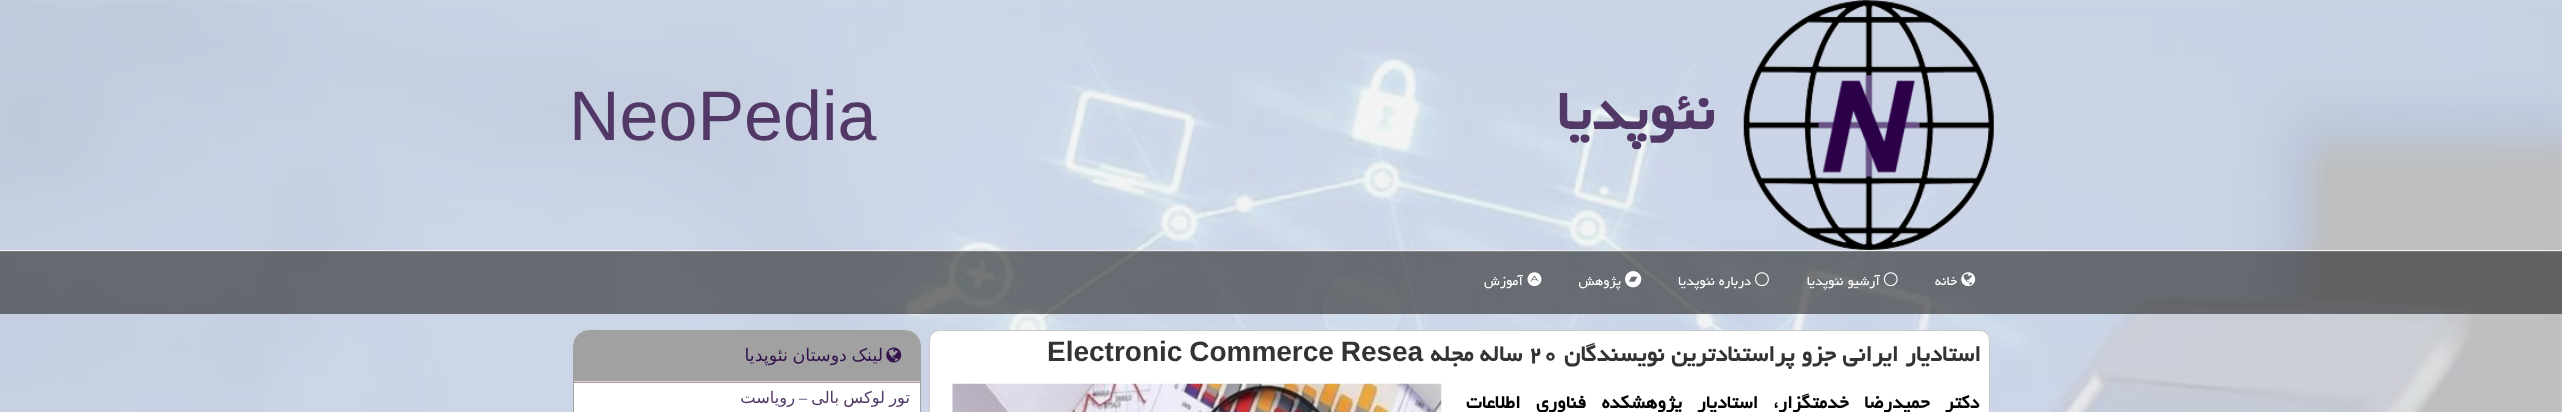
<svg xmlns="http://www.w3.org/2000/svg" width="2562" height="412">
	<rect width="100%" height="100%" fill="#F1F1F1" />
	<image x="0" y="0" width="2562" height="412" href="assets/img1.png" />
	<rect x="0" y="250" width="2562" height="1" fill="#EEEEEE" />
	<image x="1743" y="0" width="251" height="250" href="assets/img2.png" />
	<text x="1714" y="129" font-family="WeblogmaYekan" font-size="70" font-weight="700" direction="rtl" fill="#523867">نئوپدیا</text>
	<text x="569" y="140" font-family="Liberation Sans" font-size="70" fill="#523867">NeoPedia</text>
	<rect x="0" y="251" width="2562" height="63" fill="#232323" fill-opacity="0.6" />
	<rect x="0" y="251" width="2562" height="1" fill="#FFFFFF" fill-opacity="0.15" />
	<image x="1961" y="272" width="15" height="15" href="assets/img3.png" />
	<text x="1957" y="285" font-family="WeblogmaYekan" font-size="16.25" direction="rtl" fill="#FFFFFF">خانه</text>
	<image x="1883" y="272" width="15" height="15" href="assets/img4.png" />
	<text x="1880" y="285" font-family="WeblogmaYekan" font-size="16.25" direction="rtl" fill="#FFFFFF">آرشیو نئوپدیا</text>
	<image x="1755" y="272" width="14" height="15" href="assets/img5.png" />
	<text x="1751" y="285" font-family="WeblogmaYekan" font-size="16.25" direction="rtl" fill="#FFFFFF">درباره نئوپدیا</text>
	<image x="1625" y="271" width="17" height="17" href="assets/img6.png" />
	<text x="1621" y="285" font-family="WeblogmaYekan" font-size="16.25" direction="rtl" fill="#FFFFFF">پژوهش</text>
	<image x="1527" y="272" width="15" height="15" href="assets/img7.png" />
	<text x="1523" y="285" font-family="WeblogmaYekan" font-size="16.25" direction="rtl" fill="#FFFFFF">آموزش</text>
	<path d="M939 331H1980C1985 331 1989 335 1989 340V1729C1989 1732 1985 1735 1980 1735H939C934 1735 930 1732 930 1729V340C930 335 934 331 939 331Z" fill="#FFFFFF" />
	<rect x="929.5" y="330.5" width="1060" height="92" rx="9.5" fill="none" stroke="#CBCBCB" />
	<text x="1981" y="361" font-family="WeblogmaYekan" font-size="28" font-weight="700" direction="rtl" fill="#333333">استادیار ایرانی جزو پراستنادترین نویسندگان</text>
	<text x="1528" y="361" font-family="WeblogmaYekan" font-size="28" font-weight="700" fill="#333333">۲۰</text>
	<text x="1522" y="361" font-family="WeblogmaYekan" font-size="28" font-weight="700" direction="rtl" fill="#333333">ساله مجله</text>
	<text x="1047" y="361" word-spacing="-1" font-family="Liberation Sans" font-size="28" font-weight="700" fill="#333333">Electronic Commerce Resea</text>
	<text x="1979" y="408" word-spacing="10" font-family="WeblogmaYekan" font-size="22.5" font-weight="700" direction="rtl" fill="#000000">دکتر حمیدرضا خدمتگزار، استادیار پژوهشکده فناوری اطلاعات</text>
	<image x="952" y="383" width="490" height="29" href="assets/img8.png" />
	<path d="M589 331H905C913 331 920 338 920 346V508C920 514 913 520 905 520H589C580 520 574 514 574 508V346C574 338 580 331 589 331Z" fill="#FFFFFF" />
	<rect x="573.5" y="330.5" width="347" height="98" rx="15.5" fill="none" stroke="#A1A1A1" />
	<path d="M588 331H906C913.5 331 920 337.5 920 345V383H574V345C574 337.5 580.5 331 588 331Z" fill="#A1A1A1" />
	<rect x="574" y="381" width="346" height="1" fill="#EBCCD1" />
	<image x="886" y="347" width="16" height="16" href="assets/img9.png" />
	<text x="883" y="361" word-spacing="-1" font-family="DejaVu Sans" font-size="17.5" direction="rtl" fill="#34134D">لینک دوستان نئوپدیا</text>
	<text x="910" y="403" word-spacing="-1" font-family="DejaVu Sans" font-size="16.25" direction="rtl" fill="#523867">تور لوکس بالی</text>
	<text x="807" y="403" font-family="Liberation Serif" font-size="16.25" direction="rtl" fill="#523867">–</text>
	<text x="795" y="403" font-family="DejaVu Sans" font-size="16.25" direction="rtl" fill="#523867">رویاست</text>
</svg>
